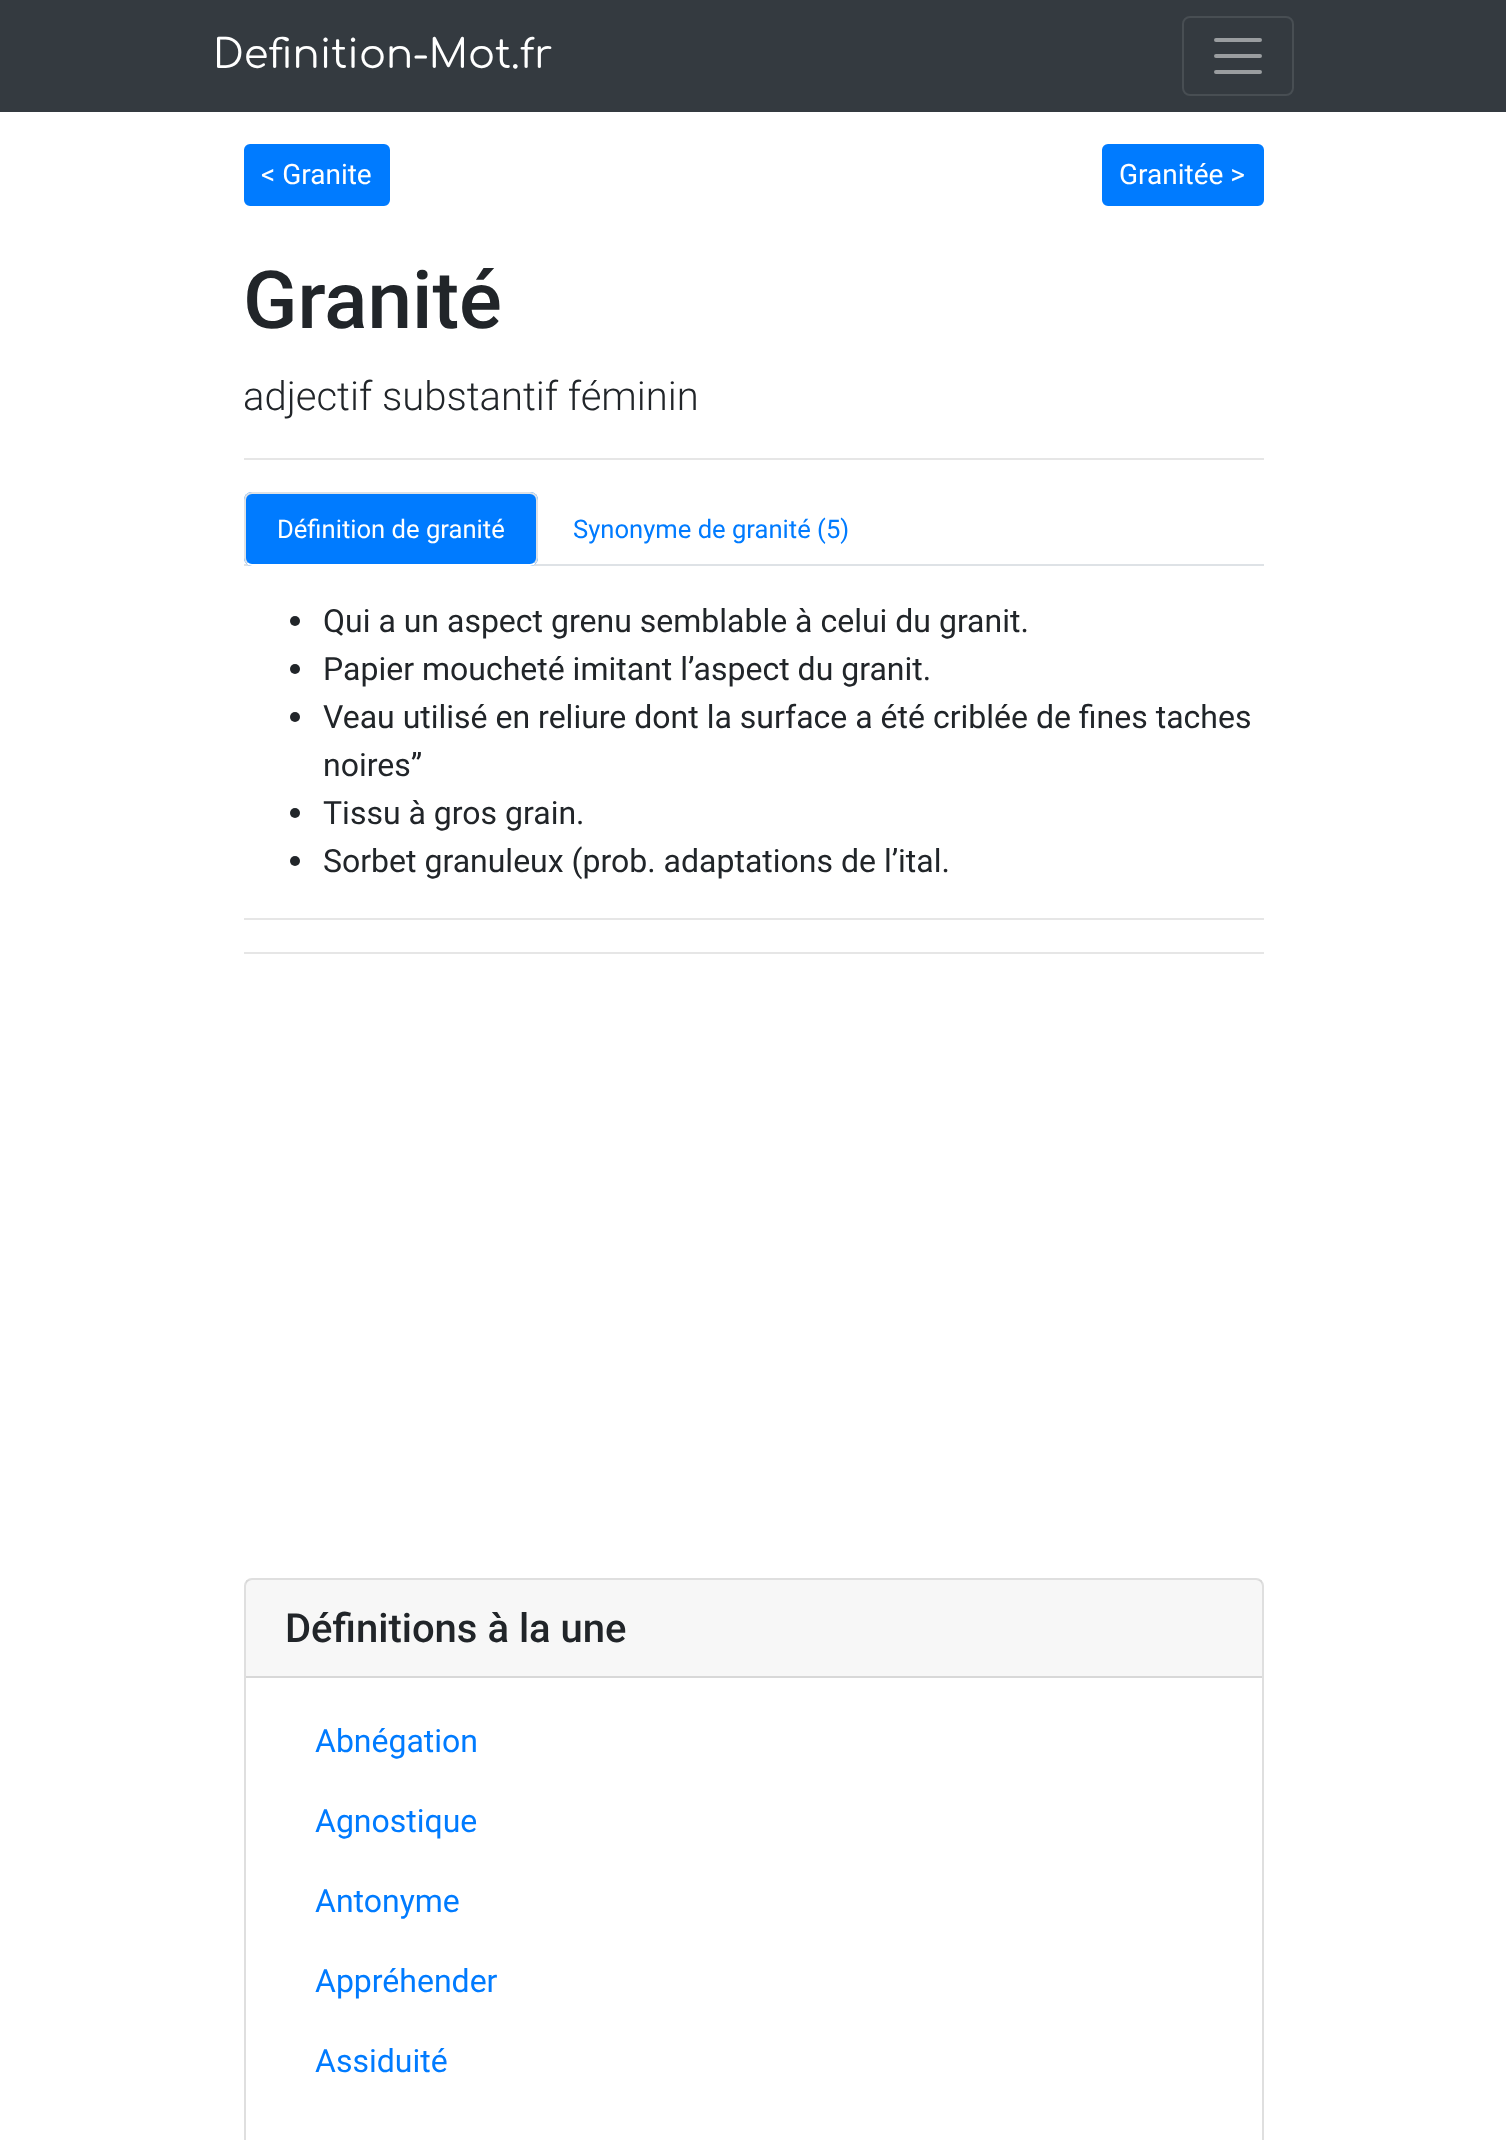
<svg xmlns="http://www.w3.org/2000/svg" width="1506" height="2140">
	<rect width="100%" height="100%" fill="#FFFFFF" />
	<rect x="0" y="0" width="1506" height="112" fill="#343A40" />
	<text x="213" y="68" font-family="Comfortaa" font-size="40" fill="#FFFFFF">Definition-Mot.fr</text>
	<rect x="1183" y="17" width="110" height="78" rx="7" fill="none" stroke="#484E53" stroke-width="2" />
	<path d="M1216 40H1260M1216 56H1260M1216 72H1260" fill="none" stroke="#9A9DA0" stroke-width="4" stroke-linecap="round" />
	<rect x="245" y="145" width="144" height="60" rx="5" fill="#007BFF" stroke="#007BFF" stroke-width="2" />
	<text x="261" y="184" font-family="Roboto" font-size="28" fill="#FFFFFF">&lt; Granite</text>
	<rect x="1103" y="145" width="160" height="60" rx="5" fill="#007BFF" stroke="#007BFF" stroke-width="2" />
	<text x="1119" y="184" font-family="Roboto" font-size="28" fill="#FFFFFF">Granitée &gt;</text>
	<text x="243" y="328" font-family="Roboto" font-size="80" font-weight="500" fill="#212529">Granité</text>
	<text x="243" y="410" font-family="Roboto" font-size="40" font-weight="300" fill="#212529">adjectif substantif féminin</text>
	<rect x="244" y="458" width="1020" height="2" fill="#E6E6E6" />
	<rect x="244" y="564" width="1020" height="2" fill="#DEE2E6" />
	<rect x="244" y="492" width="294" height="74" rx="8" fill="#007BFF" />
	<path d="M535 563C533.5 564.5 532 565 530 565H252C250 565 248.5 564.5 247 563" fill="none" stroke="#FFFFFF" stroke-width="2" />
	<path d="M247 563C245.5 561.5 245 560 245 558V500C245 498 245.5 496.5 247 495C248.5 493.5 250 493 252 493H530C532 493 533.5 493.5 535 495C536.5 496.5 537 498 537 500V558C537 560 536.5 561.5 535 563" fill="none" stroke="#DEE2E6" stroke-width="2" />
	<text x="277" y="538" font-family="Roboto" font-size="25.6" fill="#FFFFFF">Définition de granité</text>
	<text x="573" y="538" font-family="Roboto" font-size="25.6" fill="#007BFF">Synonyme de granité (5)</text>
	<circle cx="295" cy="621" r="5" fill="#212529" />
	<text x="323" y="632" font-family="Roboto" font-size="32" fill="#212529">Qui a un aspect grenu semblable à celui du granit.</text>
	<circle cx="295" cy="669" r="5" fill="#212529" />
	<text x="323" y="680" font-family="Roboto" font-size="32" fill="#212529">Papier moucheté imitant l’aspect du granit.</text>
	<circle cx="295" cy="717" r="5" fill="#212529" />
	<g font-family="Roboto" font-size="32" fill="#212529">
		<text x="323" y="728">Veau utilisé en reliure dont la surface a été criblée de fines taches</text>
		<text x="323" y="776">noires”</text>
	</g>
	<circle cx="295" cy="813" r="5" fill="#212529" />
	<text x="323" y="824" font-family="Roboto" font-size="32" fill="#212529">Tissu à gros grain.</text>
	<circle cx="295" cy="861" r="5" fill="#212529" />
	<text x="323" y="872" font-family="Roboto" font-size="32" fill="#212529">Sorbet granuleux (prob. adaptations de l’ital.</text>
	<rect x="244" y="918" width="1020" height="2" fill="#E6E6E6" />
	<rect x="244" y="952" width="1020" height="2" fill="#E6E6E6" />
	<rect x="245" y="1579" width="1018" height="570" rx="7" fill="none" stroke="#DFDFDF" stroke-width="2" />
	<rect x="246" y="1580" width="1016" height="96" fill="#000000" fill-opacity="0.03" />
	<rect x="246" y="1676" width="1016" height="2" fill="#D8D8D8" />
	<text x="285" y="1642" font-family="Roboto" font-size="40" font-weight="500" fill="#212529">Définitions à la une</text>
	<g font-family="Roboto" font-size="32" fill="#007BFF">
		<text x="315" y="1752">Abnégation</text>
		<text x="315" y="1832">Agnostique</text>
		<text x="315" y="1912">Antonyme</text>
		<text x="315" y="1992">Appréhender</text>
		<text x="315" y="2072">Assiduité</text>
	</g>
</svg>
